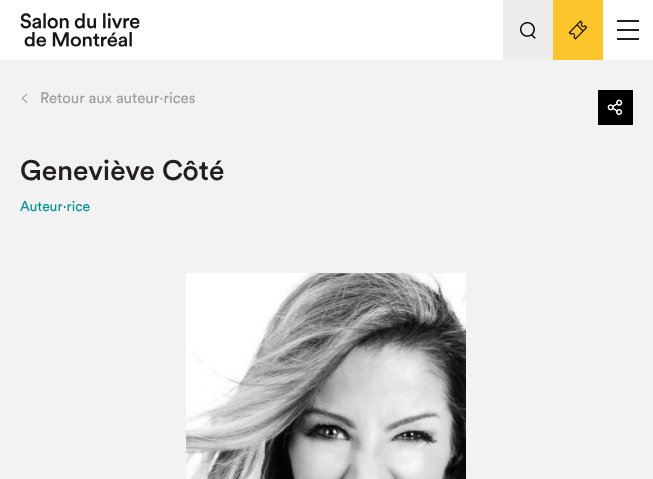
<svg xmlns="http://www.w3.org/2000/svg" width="653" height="479">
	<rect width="100%" height="100%" fill="#FFFFFF" />
	<image x="20" y="13" width="120" height="34" href="assets/img1.png" />
	<rect x="503" y="0" width="50" height="60" fill="#ECECEC" />
	<image x="520" y="22" width="16" height="17" href="assets/img2.png" />
	<rect x="553" y="0" width="50" height="60" fill="#FDC52C" />
	<image x="568" y="20" width="20" height="20" href="assets/img3.png" />
	<rect x="617" y="20" width="22" height="2" fill="#231F20" />
	<rect x="617" y="29" width="22" height="2" fill="#231F20" />
	<rect x="617" y="38" width="22" height="2" fill="#231F20" />
	<rect x="0" y="60" width="653" height="419" fill="#F2F2F2" />
	<image x="21" y="93" width="7" height="10" href="assets/img4.png" />
	<text x="40" y="103" font-family="Circular" font-size="15" fill="#9C9C9C">Retour aux auteur·rices</text>
	<rect x="598" y="90" width="35" height="35" fill="#000000" />
	<image x="607" y="99" width="16" height="16" href="assets/img5.png" />
	<text x="20" y="180" font-family="Circular" font-size="28" font-weight="500" fill="#231F20">Geneviève Côté</text>
	<text x="20" y="211" font-family="Circular" font-size="14" fill="#009193">Auteur·rice</text>
	<image x="186" y="273" width="280" height="206" href="assets/img6.png" />
</svg>
